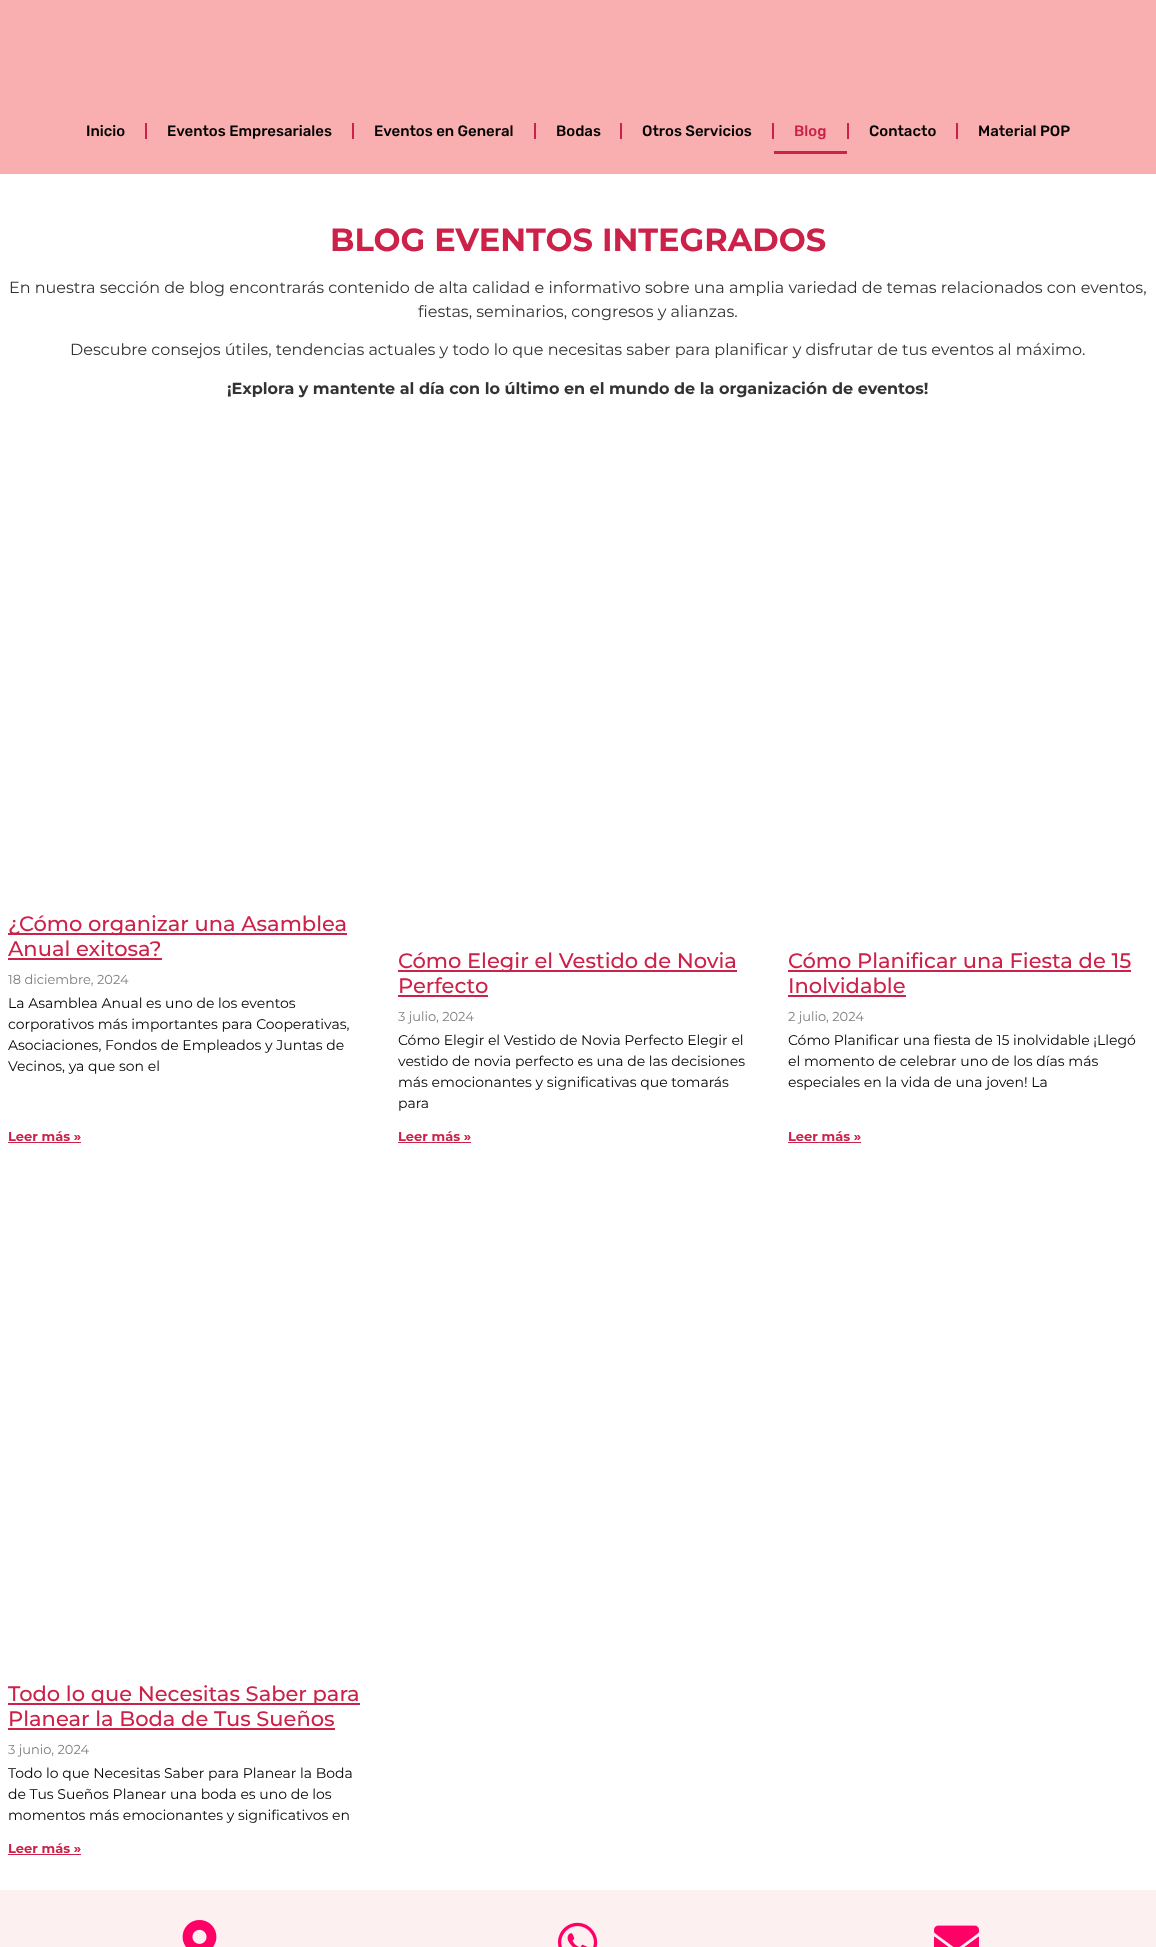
<svg xmlns="http://www.w3.org/2000/svg" width="1156" height="1947">
	<rect width="100%" height="100%" fill="#FFFFFF" />
	<rect x="0" y="0" width="1156" height="174" fill="#F9AFAF" />
	<text x="86" y="136" font-family="Rubik" font-size="15" font-weight="500" fill="#000000">Inicio</text>
	<rect x="145" y="123" width="2" height="16" fill="#CC2149" />
	<text x="167" y="136" font-family="Rubik" font-size="15" font-weight="500" fill="#000000">Eventos Empresariales</text>
	<rect x="352" y="123" width="2" height="16" fill="#CC2149" />
	<text x="374" y="136" font-family="Rubik" font-size="15" font-weight="500" fill="#000000">Eventos en General</text>
	<rect x="534" y="123" width="2" height="16" fill="#CC2149" />
	<text x="556" y="136" font-family="Rubik" font-size="15" font-weight="500" fill="#000000">Bodas</text>
	<rect x="620" y="123" width="2" height="16" fill="#CC2149" />
	<text x="642" y="136" font-family="Rubik" font-size="15" font-weight="500" fill="#000000">Otros Servicios</text>
	<rect x="772" y="123" width="2" height="16" fill="#CC2149" />
	<text x="794" y="136" font-family="Rubik" font-size="15" font-weight="500" fill="#CC2149">Blog</text>
	<rect x="774" y="151" width="73" height="3" fill="#CC2149" />
	<rect x="847" y="123" width="2" height="16" fill="#CC2149" />
	<text x="869" y="136" font-family="Rubik" font-size="15" font-weight="500" fill="#000000">Contacto</text>
	<rect x="956" y="123" width="2" height="16" fill="#CC2149" />
	<text x="978" y="136" font-family="Rubik" font-size="15" font-weight="500" fill="#000000">Material POP</text>
	<text x="330" y="251" font-family="Montserrat" font-size="32" font-weight="700" fill="#CC2149">BLOG EVENTOS INTEGRADOS</text>
	<g font-family="Montserrat" font-size="16" fill="#333333">
		<text x="9" y="293">En nuestra sección de blog encontrarás contenido de alta calidad e informativo sobre una amplia variedad de temas relacionados con eventos,</text>
		<text x="418" y="317">fiestas, seminarios, congresos y alianzas.</text>
		<text x="70" y="355">Descubre consejos útiles, tendencias actuales y todo lo que necesitas saber para planificar y disfrutar de tus eventos al máximo.</text>
	</g>
	<text x="227" y="394" font-family="Montserrat" font-size="16" font-weight="700" fill="#333333">¡Explora y mantente al día con lo último en el mundo de la organización de eventos!</text>
	<rect x="8" y="933" width="339" height="2" fill="#CC2149" />
	<g font-family="Montserrat" font-size="21" font-weight="500" fill="#CC2149">
		<text x="8" y="931">¿Cómo organizar una Asamblea</text>
		<text x="8" y="956">Anual exitosa?</text>
	</g>
	<rect x="8" y="958" width="154" height="2" fill="#CC2149" />
	<text x="8" y="984" font-family="Montserrat" font-size="13" fill="#7F7F7F">18 diciembre, 2024</text>
	<g font-family="Montserrat" font-size="14" fill="#000000">
		<text x="8" y="1008">La Asamblea Anual es uno de los eventos</text>
		<text x="8" y="1029">corporativos más importantes para Cooperativas,</text>
		<text x="8" y="1050">Asociaciones, Fondos de Empleados y Juntas de</text>
		<text x="8" y="1071">Vecinos, ya que son el</text>
	</g>
	<text x="8" y="1141" font-family="Montserrat" font-size="13" font-weight="700" fill="#CC2149">Leer más »</text>
	<rect x="8" y="1142" width="73" height="1" fill="#CC2149" />
	<rect x="398" y="970" width="339" height="2" fill="#CC2149" />
	<g font-family="Montserrat" font-size="21" font-weight="500" fill="#CC2149">
		<text x="398" y="968">Cómo Elegir el Vestido de Novia</text>
		<text x="398" y="993">Perfecto</text>
	</g>
	<rect x="398" y="995" width="90" height="2" fill="#CC2149" />
	<text x="398" y="1021" font-family="Montserrat" font-size="13" fill="#7F7F7F">3 julio, 2024</text>
	<g font-family="Montserrat" font-size="14" fill="#000000">
		<text x="398" y="1045">Cómo Elegir el Vestido de Novia Perfecto Elegir el</text>
		<text x="398" y="1066">vestido de novia perfecto es una de las decisiones</text>
		<text x="398" y="1087">más emocionantes y significativas que tomarás</text>
		<text x="398" y="1108">para</text>
	</g>
	<text x="398" y="1141" font-family="Montserrat" font-size="13" font-weight="700" fill="#CC2149">Leer más »</text>
	<rect x="398" y="1142" width="73" height="1" fill="#CC2149" />
	<text x="788" y="968" font-family="Montserrat" font-size="21" font-weight="500" fill="#CC2149">Cómo Planificar una Fiesta de 15</text>
	<rect x="788" y="970" width="343" height="2" fill="#CC2149" />
	<text x="788" y="993" font-family="Montserrat" font-size="21" font-weight="500" fill="#CC2149">Inolvidable</text>
	<rect x="788" y="995" width="118" height="2" fill="#CC2149" />
	<text x="788" y="1021" font-family="Montserrat" font-size="13" fill="#7F7F7F">2 julio, 2024</text>
	<g font-family="Montserrat" font-size="14" fill="#000000">
		<text x="788" y="1045">Cómo Planificar una fiesta de 15 inolvidable ¡Llegó</text>
		<text x="788" y="1066">el momento de celebrar uno de los días más</text>
		<text x="788" y="1087">especiales en la vida de una joven! La</text>
	</g>
	<text x="788" y="1141" font-family="Montserrat" font-size="13" font-weight="700" fill="#CC2149">Leer más »</text>
	<rect x="788" y="1142" width="73" height="1" fill="#CC2149" />
	<rect x="8" y="1703" width="352" height="2" fill="#CC2149" />
	<g font-family="Montserrat" font-size="21" font-weight="500" fill="#CC2149">
		<text x="8" y="1701">Todo lo que Necesitas Saber para</text>
		<text x="8" y="1726">Planear la Boda de Tus Sueños</text>
	</g>
	<rect x="8" y="1728" width="327" height="2" fill="#CC2149" />
	<text x="8" y="1754" font-family="Montserrat" font-size="13" fill="#7F7F7F">3 junio, 2024</text>
	<g font-family="Montserrat" font-size="14" fill="#000000">
		<text x="8" y="1778">Todo lo que Necesitas Saber para Planear la Boda</text>
		<text x="8" y="1799">de Tus Sueños Planear una boda es uno de los</text>
		<text x="8" y="1820">momentos más emocionantes y significativos en</text>
	</g>
	<text x="8" y="1853" font-family="Montserrat" font-size="13" font-weight="700" fill="#CC2149">Leer más »</text>
	<rect x="8" y="1854" width="73" height="1" fill="#CC2149" />
	<rect x="0" y="1890" width="1156" height="57" fill="#FDF0F0" />
	<image x="182" y="1920" width="35" height="27" href="assets/img1.png" />
	<image x="558" y="1922" width="40" height="25" href="assets/img2.png" />
	<image x="934" y="1925" width="45" height="22" href="assets/img3.png" />
</svg>
